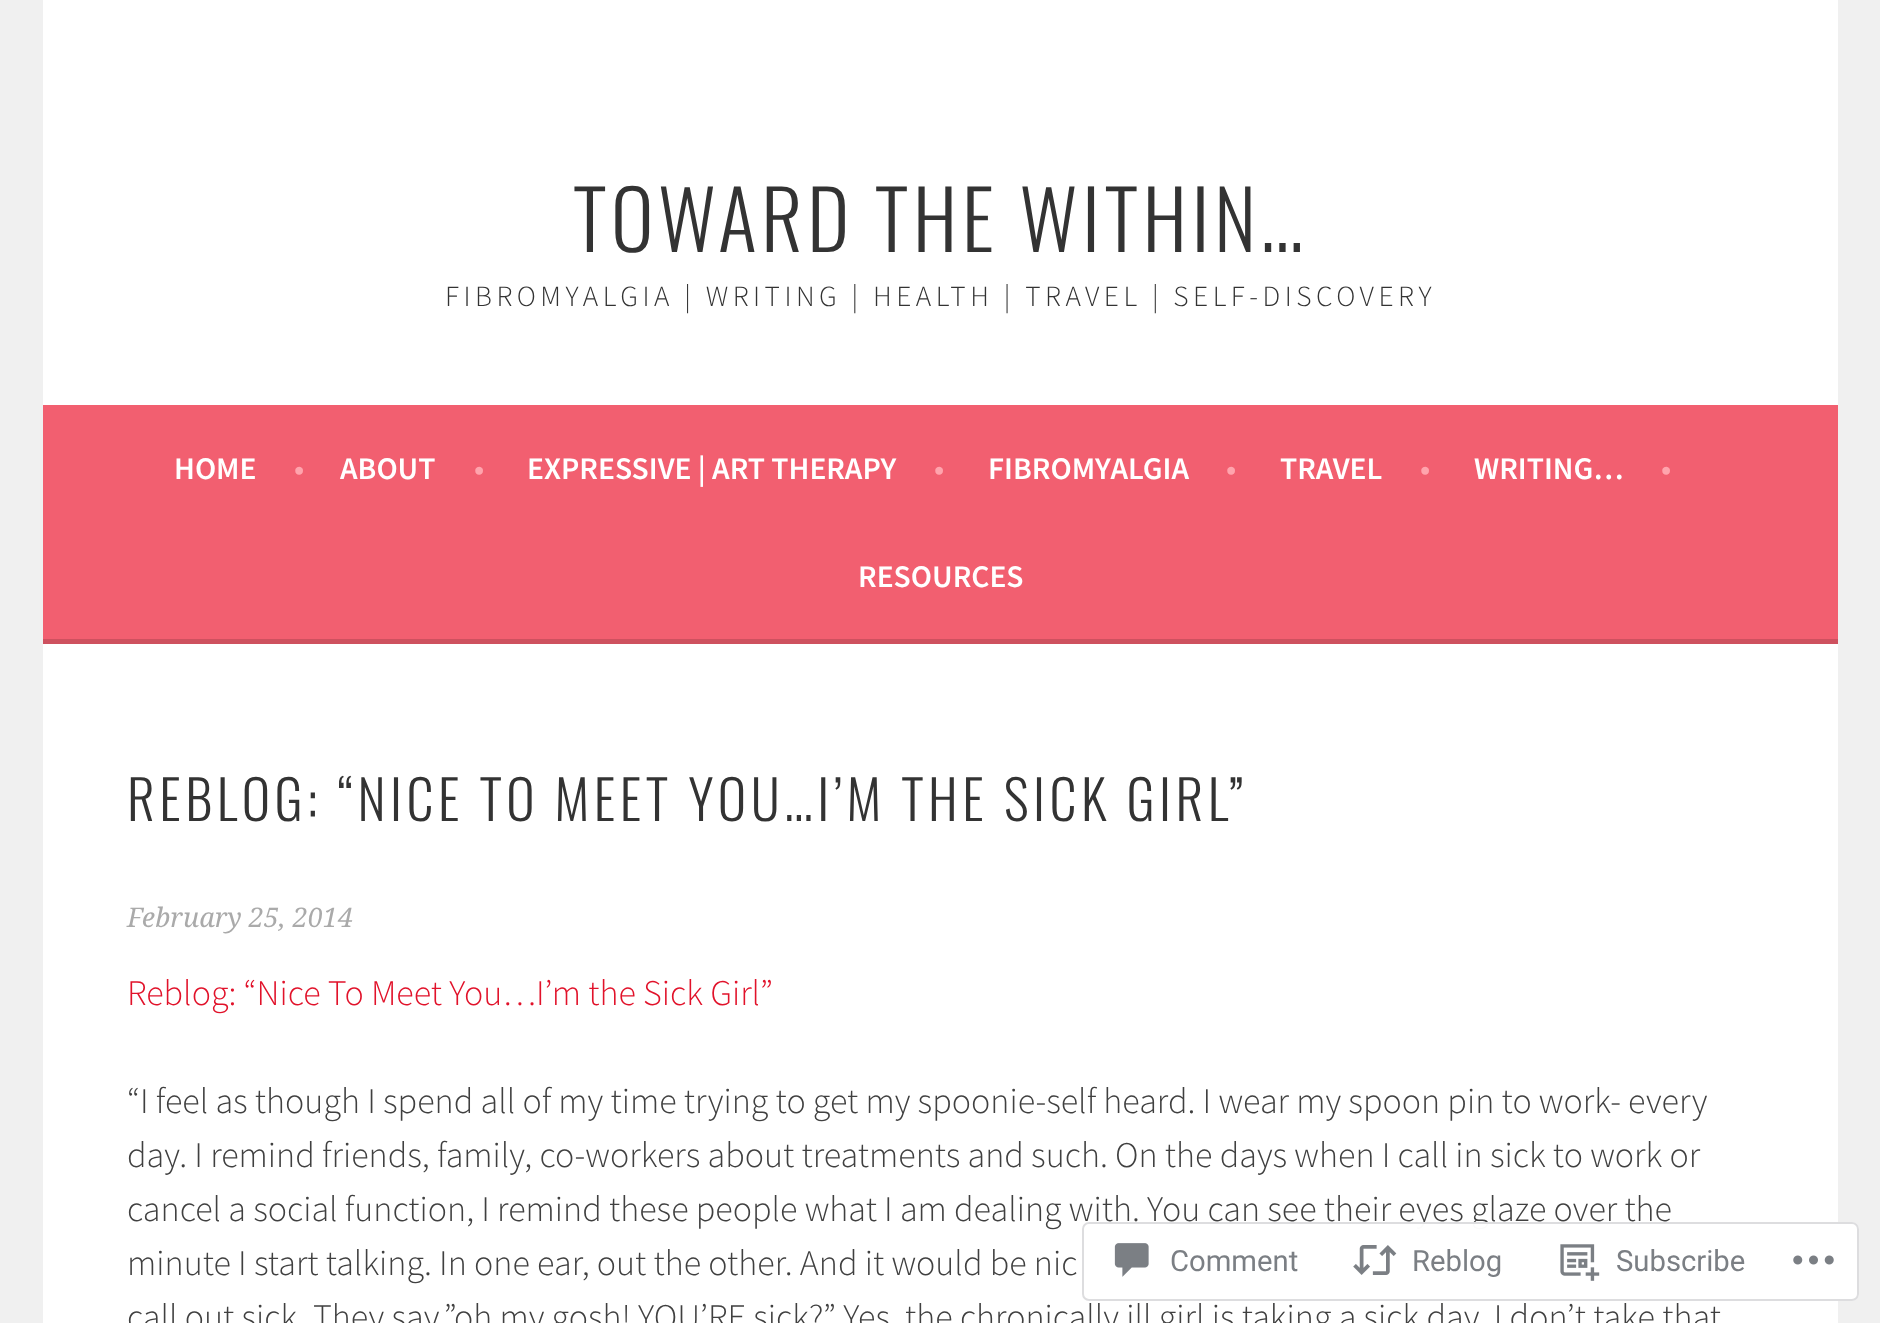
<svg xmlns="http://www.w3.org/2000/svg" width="1880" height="1323">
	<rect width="100%" height="100%" fill="#F0F0F0" />
	<rect x="43" y="0" width="1795" height="405" fill="#FFFFFF" />
	<text x="573" y="252" font-family="Oswald" font-size="81" font-weight="300" letter-spacing="4.5" fill="#333333">TOWARD THE WITHIN…</text>
	<text x="445" y="306" font-family="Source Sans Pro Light" font-size="29.25" font-weight="300" letter-spacing="4.5" fill="#333333">FIBROMYALGIA | WRITING | HEALTH | TRAVEL | SELF-DISCOVERY</text>
	<rect x="43" y="405" width="1795" height="234" fill="#F25F70" />
	<rect x="43" y="639" width="1795" height="5" fill="#CE515F" />
	<text x="174" y="479" font-family="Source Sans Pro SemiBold" font-size="31.5" font-weight="600" fill="#FFFFFF">HOME</text>
	<text x="294" y="479" font-family="Source Sans Pro SemiBold" font-size="31.5" font-weight="600" fill="#FFA4AD">•</text>
	<text x="340" y="479" font-family="Source Sans Pro SemiBold" font-size="31.5" font-weight="600" fill="#FFFFFF">ABOUT</text>
	<text x="474" y="479" font-family="Source Sans Pro SemiBold" font-size="31.5" font-weight="600" fill="#FFA4AD">•</text>
	<text x="527" y="479" font-family="Source Sans Pro SemiBold" font-size="31.5" font-weight="600" fill="#FFFFFF">EXPRESSIVE | ART THERAPY</text>
	<text x="934" y="479" font-family="Source Sans Pro SemiBold" font-size="31.5" font-weight="600" fill="#FFA4AD">•</text>
	<text x="988" y="479" font-family="Source Sans Pro SemiBold" font-size="31.5" font-weight="600" fill="#FFFFFF">FIBROMYALGIA</text>
	<text x="1226" y="479" font-family="Source Sans Pro SemiBold" font-size="31.5" font-weight="600" fill="#FFA4AD">•</text>
	<text x="1280" y="479" font-family="Source Sans Pro SemiBold" font-size="31.5" font-weight="600" fill="#FFFFFF">TRAVEL</text>
	<text x="1420" y="479" font-family="Source Sans Pro SemiBold" font-size="31.5" font-weight="600" fill="#FFA4AD">•</text>
	<text x="1474" y="479" font-family="Source Sans Pro SemiBold" font-size="31.5" font-weight="600" fill="#FFFFFF">WRITING…</text>
	<text x="1661" y="479" font-family="Source Sans Pro SemiBold" font-size="31.5" font-weight="600" fill="#FFA4AD">•</text>
	<text x="858" y="587" font-family="Source Sans Pro SemiBold" font-size="31.5" font-weight="600" fill="#FFFFFF">RESOURCES</text>
	<rect x="43" y="644" width="1795" height="679" fill="#FFFFFF" />
	<text x="127" y="821" font-family="Oswald" font-size="54" font-weight="300" letter-spacing="4.5" fill="#333333">REBLOG: “NICE TO MEET YOU…I’M THE SICK GIRL”</text>
	<text x="127" y="927" font-family="Droid Serif" font-size="27" font-style="italic" fill="#AAAAAA">February 25, 2014</text>
	<text x="127" y="1005" font-family="Source Sans Pro Light" font-size="36" font-weight="300" fill="#E1122A">Reblog: “Nice To Meet You…I’m the Sick Girl”</text>
	<g font-family="Source Sans Pro Light" font-size="36" font-weight="300" fill="#404040">
		<text x="127" y="1113">“I feel as though I spend all of my time trying to get my spoonie-self heard. I wear my spoon pin to work- every</text>
		<text x="127" y="1167">day. I remind friends, family, co-workers about treatments and such. On the days when I call in sick to work or</text>
		<text x="127" y="1221">cancel a social function, I remind these people what I am dealing with. You can see their eyes glaze over the</text>
		<text x="127" y="1275">minute I start talking. In one ear, out the other. And it would be nic</text>
		<text x="127" y="1329">call out sick. They say,”oh my gosh! YOU’RE sick?” Yes, the chronically ill girl is taking a sick day. I don’t take that</text>
	</g>
	<rect x="1082" y="1222" width="777" height="79" rx="7" fill="#FFFFFF" fill-opacity="0.98" />
	<rect x="1083" y="1223" width="775" height="77" rx="6" fill="none" stroke="#DCDCDE" stroke-opacity="0.98" stroke-width="2" />
	<image x="1114" y="1243" width="35" height="34" href="assets/img1.png" />
	<text x="1170" y="1271" font-family="Roboto" font-size="29.25" fill="#7B7F84">Comment</text>
	<image x="1353" y="1245" width="44" height="30" href="assets/img2.png" />
	<text x="1412" y="1271" font-family="Roboto" font-size="29.25" fill="#7B7F84">Reblog</text>
	<image x="1560" y="1244" width="40" height="37" href="assets/img3.png" />
	<text x="1616" y="1271" font-family="Roboto" font-size="29.25" fill="#7B7F84">Subscribe</text>
	<image x="1793" y="1255" width="41" height="10" href="assets/img4.png" />
</svg>
